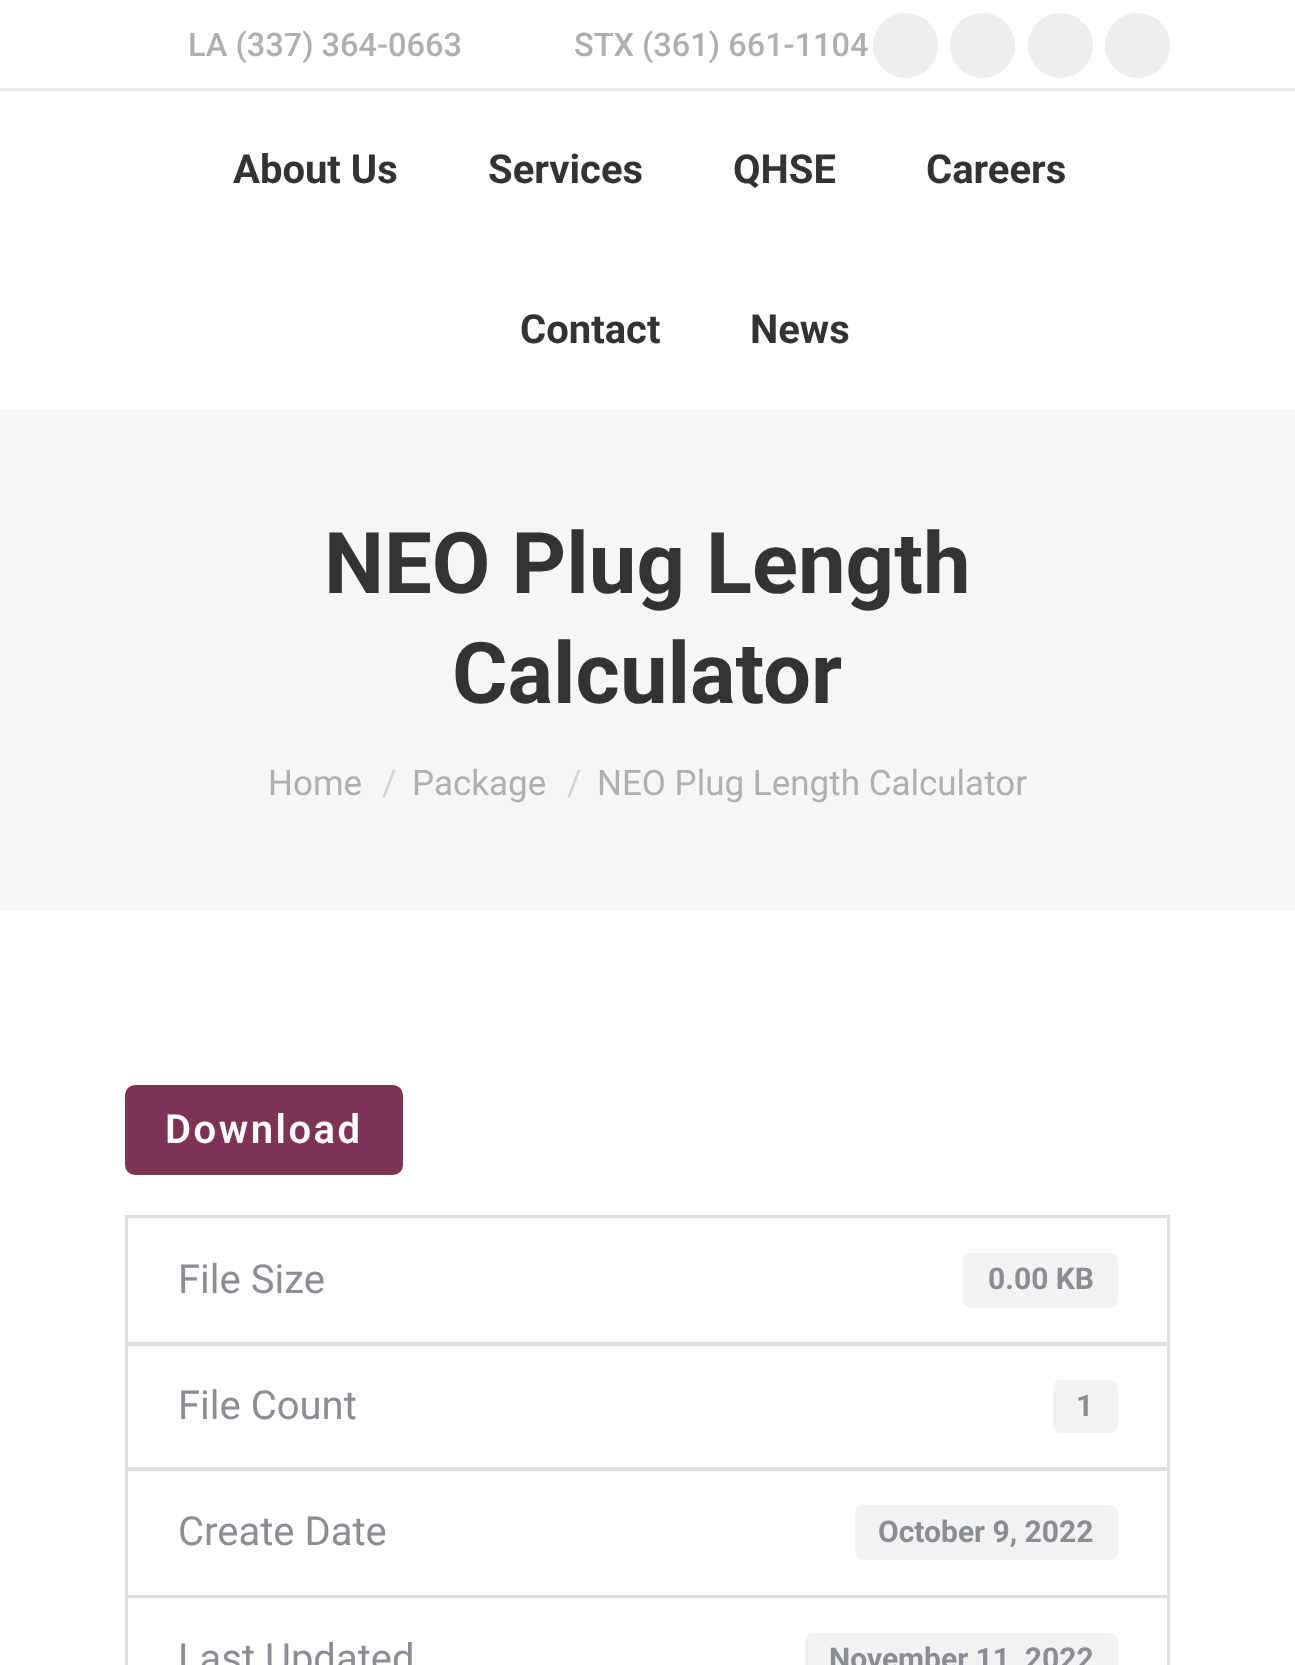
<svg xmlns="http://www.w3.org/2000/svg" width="1295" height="1665">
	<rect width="100%" height="100%" fill="#FFFFFF" />
	<g font-family="Roboto" font-size="32.5" font-weight="500" fill="#ADAFB3">
		<text x="188" y="56">LA (337) 364-0663</text>
		<text x="574" y="56">STX (361) 661-1104</text>
	</g>
	<circle cx="905.5" cy="45.5" r="32.5" fill="#EDEDED" />
	<circle cx="982.5" cy="45.5" r="32.5" fill="#EDEDED" />
	<circle cx="1060.5" cy="45.5" r="32.5" fill="#EDEDED" />
	<circle cx="1137.5" cy="45.5" r="32.5" fill="#EDEDED" />
	<rect x="0" y="88" width="1295" height="3" fill="#E9E9E9" />
	<g font-family="Roboto" font-size="40" font-weight="700" fill="#333333">
		<text x="233" y="183">About Us</text>
		<text x="488" y="183">Services</text>
		<text x="733" y="183">QHSE</text>
		<text x="926" y="183">Careers</text>
		<text x="520" y="343">Contact</text>
		<text x="750" y="343">News</text>
	</g>
	<rect x="0" y="410" width="1295" height="500" fill="#F6F6F6" />
	<g font-family="Roboto" font-size="85" font-weight="700" fill="#333333">
		<text x="324" y="593">NEO Plug Length</text>
		<text x="452" y="703">Calculator</text>
	</g>
	<text x="268" y="795" font-family="Roboto" font-size="35" fill="#ADAFB3">Home</text>
	<text x="382" y="795" font-family="Roboto" font-size="35" fill="#D2D3D5">/</text>
	<text x="412" y="795" font-family="Roboto" font-size="35" fill="#ADAFB3">Package</text>
	<text x="567" y="795" font-family="Roboto" font-size="35" fill="#D2D3D5">/</text>
	<text x="597" y="795" font-family="Roboto" font-size="35" fill="#ADAFB3">NEO Plug Length Calculator</text>
	<rect x="126.5" y="1086.5" width="275" height="87" rx="8.5" fill="#7D3354" stroke="#7D3354" stroke-width="3" />
	<text x="165" y="1143" font-family="Roboto" font-size="40" font-weight="600" letter-spacing="2.5" fill="#FFFFFF">Download</text>
	<rect x="126.5" y="1216.5" width="1042" height="127" fill="none" stroke="#DFDFDF" stroke-width="3" />
	<text x="178" y="1293" font-family="Roboto" font-size="40" fill="#8B8D94">File Size</text>
	<rect x="963" y="1253" width="155" height="55" rx="8" fill="#F2F2F2" />
	<text x="988" y="1289" font-family="Roboto" font-size="30" font-weight="700" fill="#8B8D94">0.00 KB</text>
	<rect x="126.5" y="1344.5" width="1042" height="124" fill="none" stroke="#DFDFDF" stroke-width="3" />
	<text x="178" y="1419" font-family="Roboto" font-size="40" fill="#8B8D94">File Count</text>
	<rect x="1053" y="1380" width="65" height="53" rx="8" fill="#F2F2F2" />
	<text x="1076" y="1416" font-family="Roboto" font-size="30" font-weight="700" fill="#8B8D94">1</text>
	<rect x="126.5" y="1469.5" width="1042" height="127" fill="none" stroke="#DFDFDF" stroke-width="3" />
	<text x="178" y="1545" font-family="Roboto" font-size="40" fill="#8B8D94">Create Date</text>
	<rect x="855" y="1505" width="263" height="55" rx="8" fill="#F2F2F2" />
	<text x="878" y="1542" font-family="Roboto" font-size="30" font-weight="700" fill="#8B8D94">October 9, 2022</text>
	<rect x="126.5" y="1596.5" width="1042" height="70" fill="none" stroke="#DFDFDF" stroke-width="3" />
	<text x="178" y="1672" font-family="Roboto" font-size="40" fill="#8B8D94">Last Updated</text>
	<rect x="805" y="1633" width="313" height="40" rx="8" fill="#F2F2F2" />
	<text x="829" y="1669" font-family="Roboto" font-size="30" font-weight="700" fill="#8B8D94">November 11, 2022</text>
</svg>
